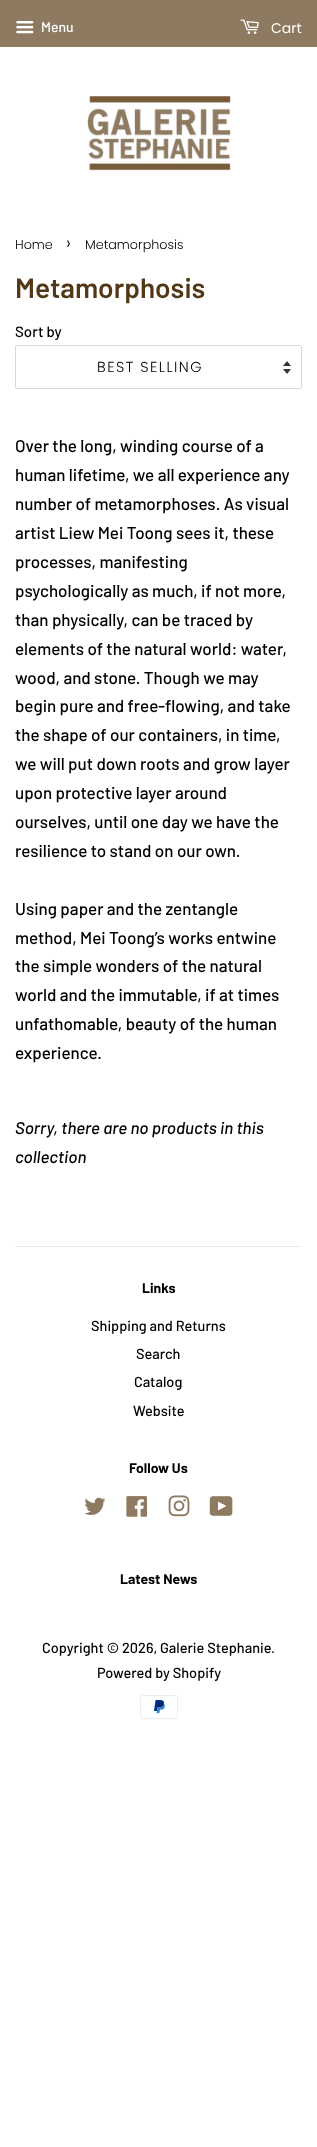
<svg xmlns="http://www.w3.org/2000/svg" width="317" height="2147">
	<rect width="100%" height="100%" fill="#FFFFFF" />
	<rect x="0" y="0" width="317" height="47" fill="#8E7A61" />
	<image x="16" y="21" width="18" height="13" href="assets/img1.png" />
	<text x="41" y="32" font-family="Barlow" font-size="14" font-weight="500" fill="#FFFFFF">Menu</text>
	<image x="240" y="19" width="19" height="15" href="assets/img2.png" />
	<text x="271" y="33" font-family="Poppins" font-size="14" fill="#FFFFFF">Cart</text>
	<image x="87" y="96" width="144" height="75" href="assets/img3.png" />
	<text x="15" y="249" font-family="Poppins" font-size="12.75" font-weight="300" fill="#000000">Home</text>
	<text x="66" y="249" font-family="Poppins" font-size="18" font-weight="300" fill="#000000">›</text>
	<text x="85" y="249" font-family="Poppins" font-size="12.75" font-weight="300" fill="#000000">Metamorphosis</text>
	<text x="15" y="298" font-family="Barlow" font-size="28" font-weight="600" fill="#533817">Metamorphosis</text>
	<text x="15" y="337" font-family="Barlow" font-size="15" font-weight="500" fill="#000000">Sort by</text>
	<image x="283" y="361" width="8" height="13" href="assets/img4.png" />
	<rect x="15.5" y="345.5" width="286" height="43" rx="1.5" fill="none" stroke="#D9D9D9" />
	<text x="97" y="372" font-family="Poppins" font-size="14.5" font-weight="300" letter-spacing="1.5" fill="#000000">BEST SELLING</text>
	<g font-family="Barlow" font-size="17" font-weight="500" fill="#000000">
		<text x="15" y="452">Over the long, winding course of a</text>
		<text x="15" y="481">human lifetime, we all experience any</text>
		<text x="15" y="510">number of metamorphoses. As visual</text>
		<text x="15" y="539">artist Liew Mei Toong sees it, these</text>
		<text x="15" y="568">processes, manifesting</text>
		<text x="15" y="597">psychologically as much, if not more,</text>
		<text x="15" y="626">than physically, can be traced by</text>
		<text x="15" y="655">elements of the natural world: water,</text>
		<text x="15" y="684">wood, and stone. Though we may</text>
		<text x="15" y="712">begin pure and free-flowing, and take</text>
		<text x="15" y="741">the shape of our containers, in time,</text>
		<text x="15" y="770">we will put down roots and grow layer</text>
		<text x="15" y="799">upon protective layer around</text>
		<text x="15" y="828">ourselves, until one day we have the</text>
		<text x="15" y="857">resilience to stand on our own.</text>
		<text x="15" y="915">Using paper and the zentangle</text>
		<text x="15" y="944">method, Mei Toong’s works entwine</text>
		<text x="15" y="972">the simple wonders of the natural</text>
		<text x="15" y="1001">world and the immutable, if at times</text>
		<text x="15" y="1030">unfathomable, beauty of the human</text>
		<text x="15" y="1059">experience.</text>
	</g>
	<g font-family="Barlow" font-size="17" font-weight="500" font-style="italic" fill="#000000">
		<text x="15" y="1134">Sorry, there are no products in this</text>
		<text x="15" y="1163">collection</text>
	</g>
	<rect x="15" y="1246" width="287" height="1" fill="#EBEBEB" />
	<text x="142" y="1293" font-family="Barlow" font-size="14" font-weight="700" fill="#000000">Links</text>
	<g font-family="Barlow" font-size="14.5" font-weight="500" fill="#000000">
		<text x="91" y="1331">Shipping and Returns</text>
		<text x="136" y="1359">Search</text>
		<text x="134" y="1387">Catalog</text>
		<text x="133" y="1416">Website</text>
	</g>
	<text x="129" y="1473" font-family="Barlow" font-size="14" font-weight="700" fill="#000000">Follow Us</text>
	<image x="84" y="1497" width="22" height="18" href="assets/img5.png" />
	<image x="126" y="1496" width="21" height="21" href="assets/img6.png" />
	<image x="168" y="1495" width="22" height="22" href="assets/img7.png" />
	<image x="209" y="1496" width="24" height="20" href="assets/img8.png" />
	<text x="120" y="1584" font-family="Barlow" font-size="14" font-weight="700" fill="#000000">Latest News</text>
	<g font-family="Barlow" font-size="14.5" font-weight="500" fill="#000000">
		<text x="42" y="1653">Copyright © 2026,</text>
		<text x="160" y="1653">Galerie Stephanie</text>
		<text x="271" y="1653">.</text>
		<text x="97" y="1678">Powered by Shopify</text>
	</g>
	<image x="140" y="1695" width="38" height="24" href="assets/img9.png" />
</svg>
